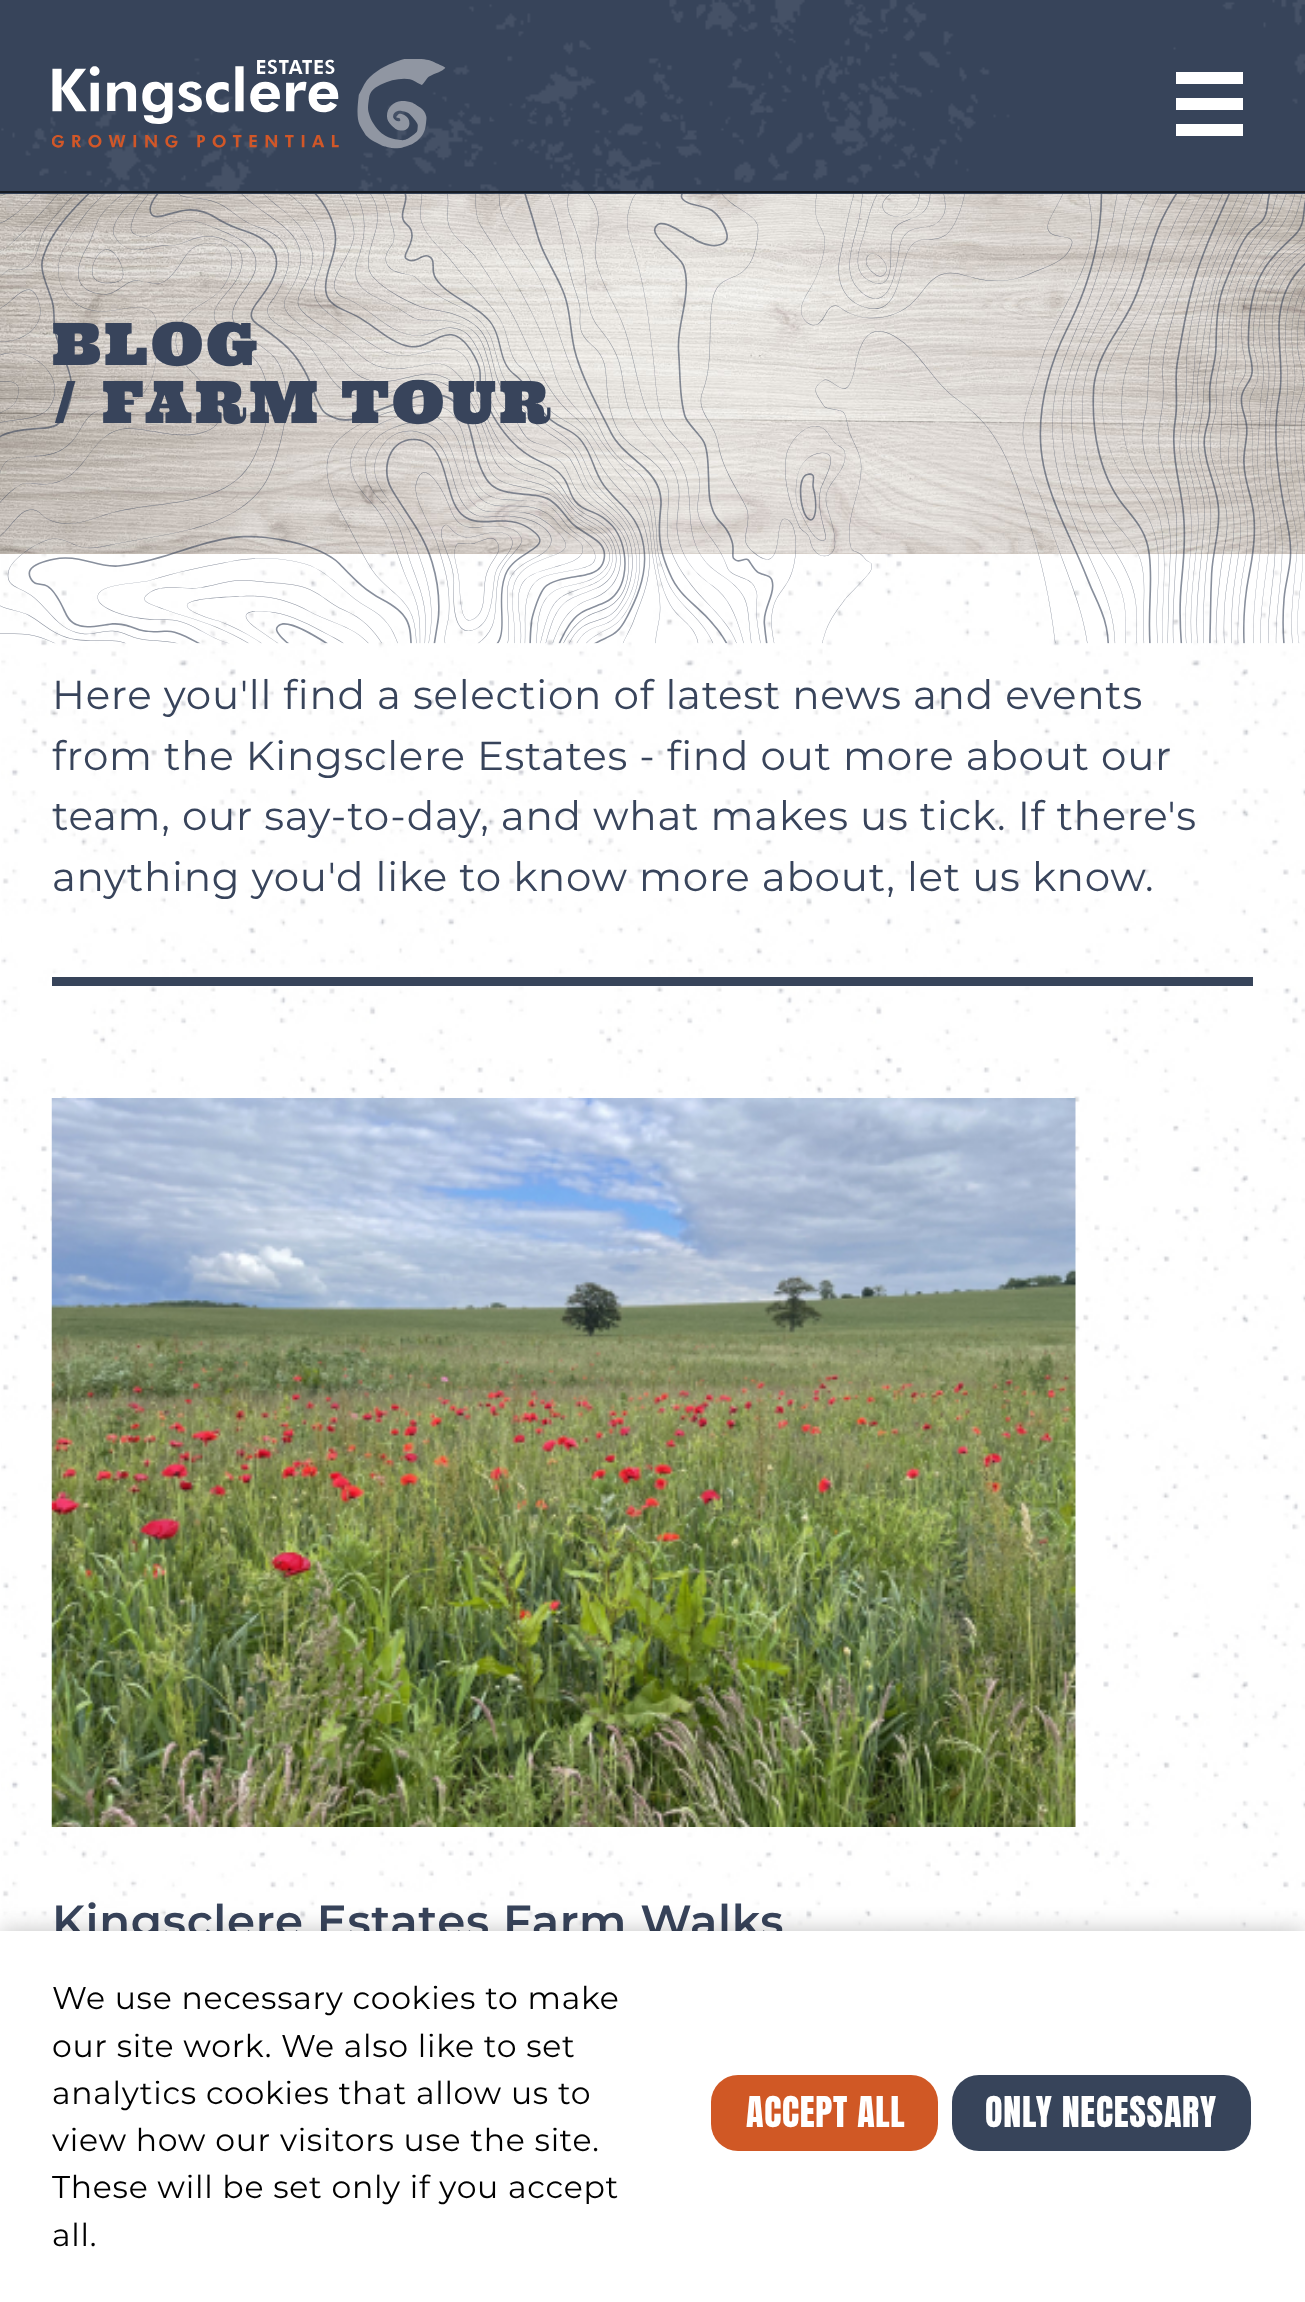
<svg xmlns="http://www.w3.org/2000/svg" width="1305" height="2302">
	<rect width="100%" height="100%" fill="#FFFFFF" />
	<rect x="0" y="0" width="1305" height="194" fill="#37445A" />
	<image x="1" y="0" width="1304" height="194" href="assets/img1.png" />
	<rect x="0" y="191" width="1305" height="2" fill="#171C24" />
	<image x="52" y="59" width="394" height="90" href="assets/img2.png" />
	<rect x="1176" y="72" width="67" height="12" fill="#FFFFFF" />
	<rect x="1176" y="98" width="67" height="12" fill="#FFFFFF" />
	<rect x="1176" y="124" width="67" height="12" fill="#FFFFFF" />
	<rect x="0" y="553" width="1305" height="1" fill="#CDC3BA" />
	<image x="0" y="194" width="1305" height="360" href="assets/img3.png" />
	<image x="1" y="554" width="1304" height="1377" href="assets/img5.png" />
	<image x="0" y="194" width="1305" height="450" href="assets/img4.png" />
	<g font-family="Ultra" font-size="58.5" letter-spacing="3" fill="#38445B">
		<text x="52" y="365">BLOG</text>
		<text x="52" y="423">/ FARM TOUR</text>
	</g>
	<g font-family="Montserrat" font-size="40.5" letter-spacing="0.72" fill="#38445B">
		<text x="52" y="709">Here you'll find a selection of latest news and events</text>
		<text x="52" y="770">from the Kingsclere Estates - find out more about our</text>
		<text x="52" y="830">team, our say-to-day, and what makes us tick. If there's</text>
		<text x="52" y="891">anything you'd like to know more about, let us know.</text>
	</g>
	<rect x="52" y="977" width="1201" height="9" fill="#37445A" />
	<image x="51" y="1098" width="1025" height="729" href="assets/img6.png" />
	<text x="52" y="1937" font-family="Montserrat" font-size="45" font-weight="600" letter-spacing="0.72" fill="#38445B">Kingsclere Estates Farm Walks</text>
	<rect x="0" y="1931" width="1305" height="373" fill="#000000" fill-opacity="0.25" filter="blur(11px)" />
	<rect x="0" y="1931" width="1305" height="371" fill="#FFFFFF" />
	<g font-family="Montserrat" font-size="31.5" letter-spacing="0.72" fill="#010101">
		<text x="52" y="2009">We use necessary cookies to make</text>
		<text x="52" y="2057">our site work. We also like to set</text>
		<text x="52" y="2104">analytics cookies that allow us to</text>
		<text x="52" y="2151">view how our visitors use the site.</text>
		<text x="52" y="2198">These will be set only if you accept</text>
		<text x="52" y="2246">all.</text>
	</g>
	<rect x="711" y="2075" width="227" height="76" rx="27" fill="#D05825" />
	<text x="746" y="2127" font-family="Anton" font-size="36" letter-spacing="0.72" fill="#FFFFFF">ACCEPT ALL</text>
	<rect x="952" y="2075" width="299" height="76" rx="27" fill="#37445A" />
	<text x="985" y="2127" font-family="Anton" font-size="36" letter-spacing="0.72" fill="#FFFFFF">ONLY NECESSARY</text>
</svg>
